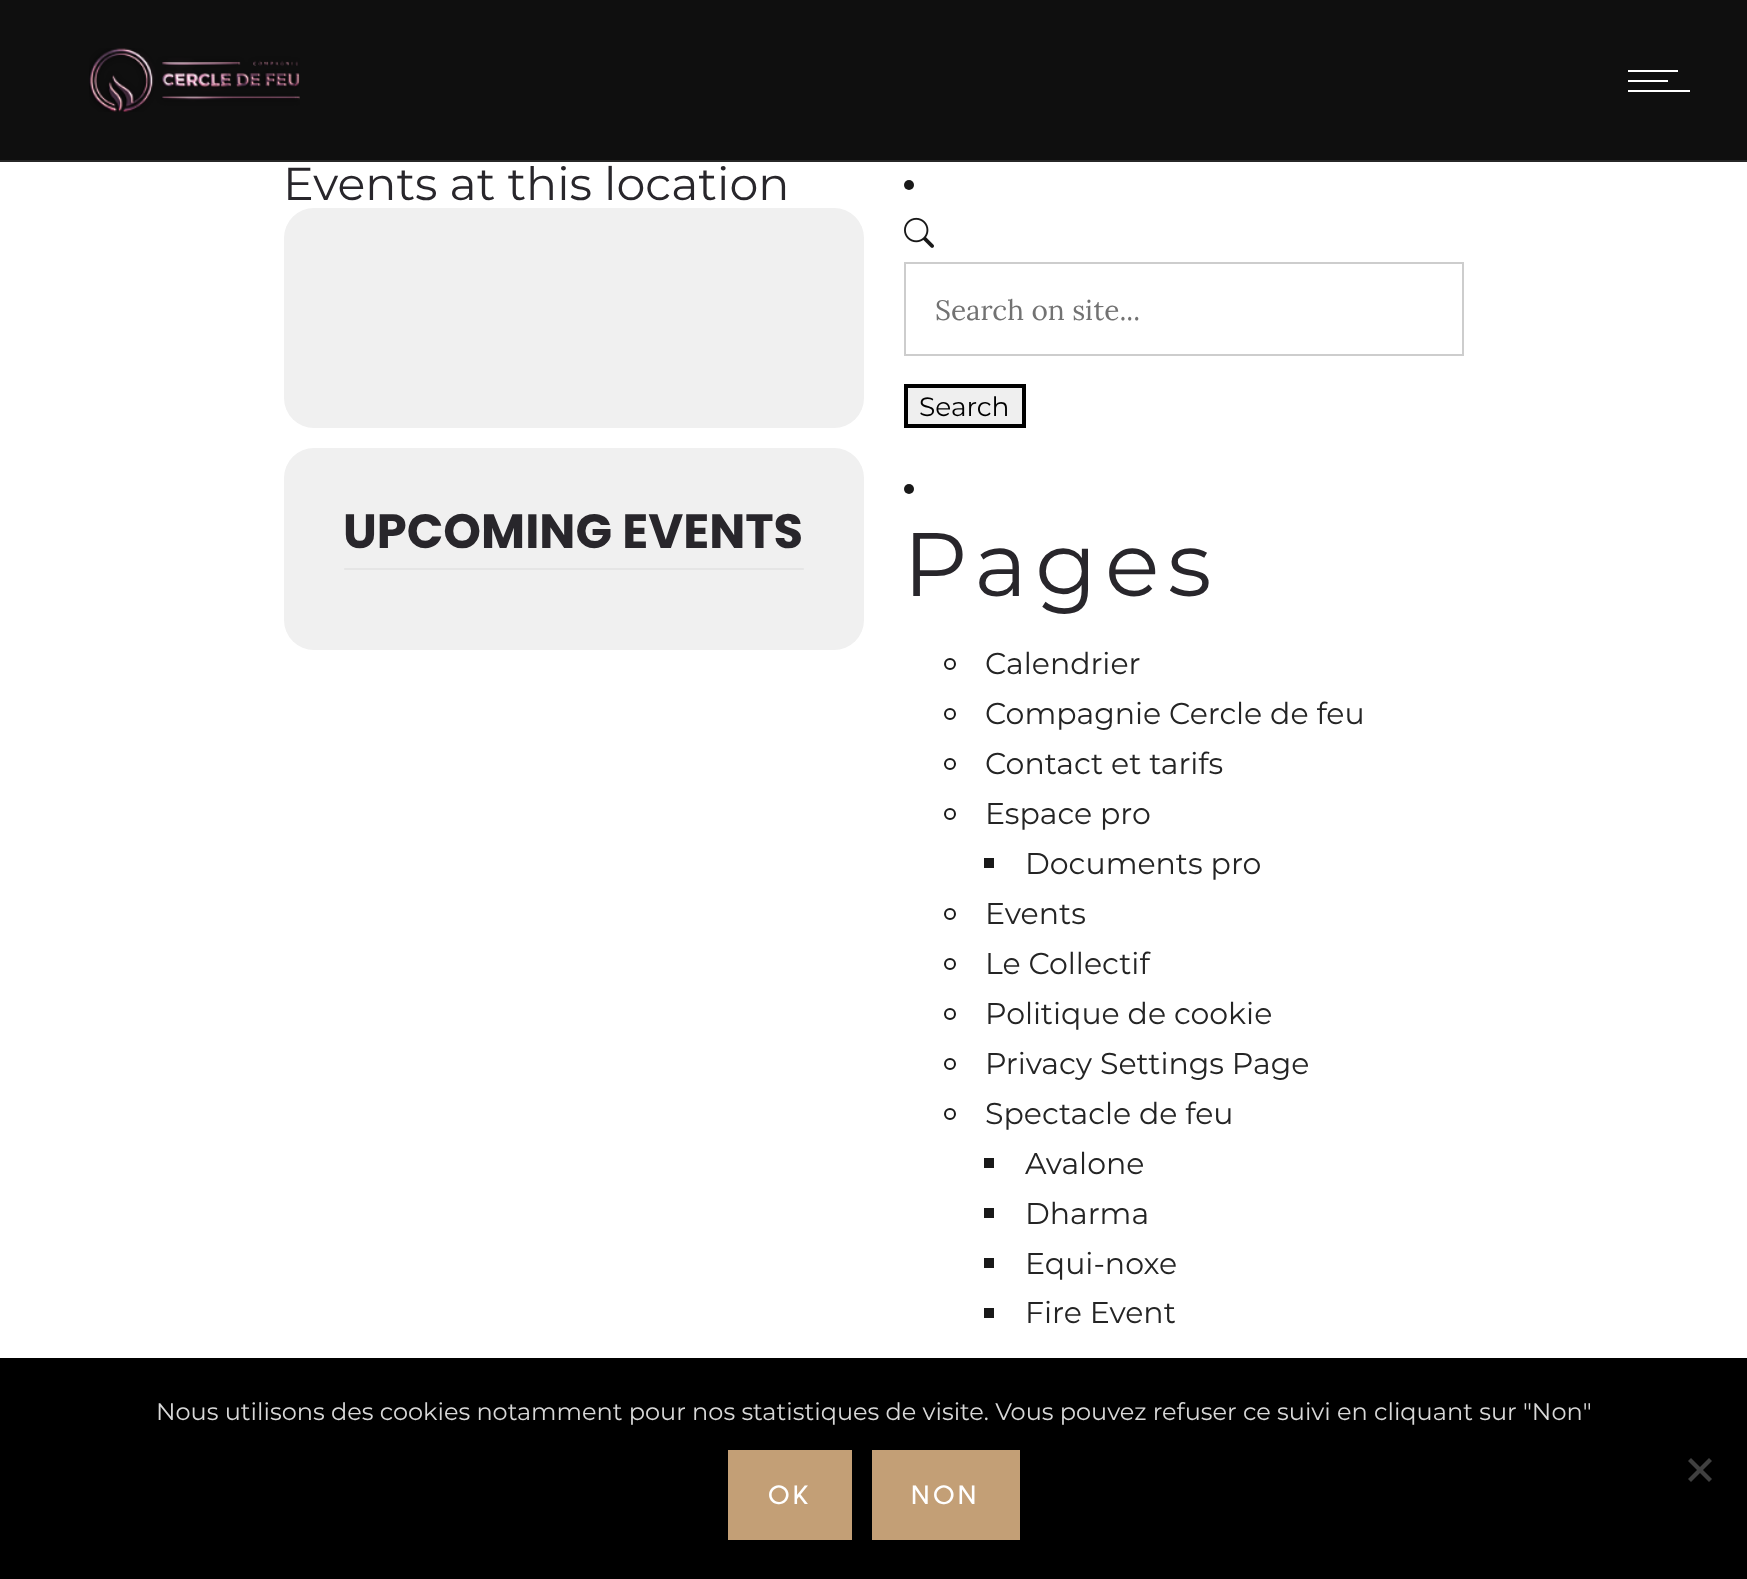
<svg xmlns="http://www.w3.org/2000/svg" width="1747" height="1579">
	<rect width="100%" height="100%" fill="#FFFFFF" />
	<rect x="0" y="0" width="1747" height="160" fill="#0F0F0F" />
	<rect x="0" y="160" width="1747" height="2" fill="#272727" />
	<image x="89" y="48" width="211" height="64" href="assets/img1.png" />
	<rect x="1628" y="70" width="50" height="2" fill="#FFFFFF" />
	<rect x="1628" y="80" width="40" height="2" fill="#FFFFFF" />
	<rect x="1628" y="90" width="62" height="2" fill="#FFFFFF" />
	<text x="283" y="200" font-family="Montserrat" font-size="46" fill="#28262B">Events at this location</text>
	<rect x="284" y="208" width="580" height="220" rx="30" fill="#F0F0F0" />
	<rect x="284" y="448" width="580" height="202" rx="30" fill="#F0F0F0" />
	<text x="343" y="548" font-family="Poppins" font-size="48" font-weight="700" fill="#28262B">UPCOMING EVENTS</text>
	<rect x="344" y="568" width="460" height="2" rx="1" fill="#E5E5E5" />
	<circle cx="909" cy="185" r="5" fill="#191919" />
	<image x="904" y="217" width="30" height="31" href="assets/img2.png" />
	<rect x="905" y="263" width="558" height="92" fill="none" stroke="#CDCDCD" stroke-width="2" />
	<text x="935" y="320" font-family="Lora" font-size="28" fill="#727272">Search on site...</text>
	<rect x="906" y="386" width="118" height="40" fill="#EFEFEF" stroke="#000000" stroke-width="4" />
	<text x="919" y="416" font-family="Montserrat" font-size="26.5" fill="#000000">Search</text>
	<circle cx="909" cy="489" r="5" fill="#191919" />
	<text x="903" y="596" font-family="Montserrat" font-size="90" letter-spacing="8" fill="#28262B">Pages</text>
	<circle cx="950" cy="664" r="5" fill="none" stroke="#191919" stroke-width="2" />
	<text x="985" y="674" font-family="Montserrat" font-size="30" fill="#242424">Calendrier</text>
	<circle cx="950" cy="714" r="5" fill="none" stroke="#191919" stroke-width="2" />
	<text x="985" y="724" font-family="Montserrat" font-size="30" fill="#242424">Compagnie Cercle de feu</text>
	<circle cx="950" cy="764" r="5" fill="none" stroke="#191919" stroke-width="2" />
	<text x="985" y="774" font-family="Montserrat" font-size="30" fill="#242424">Contact et tarifs</text>
	<circle cx="950" cy="814" r="5" fill="none" stroke="#191919" stroke-width="2" />
	<text x="985" y="824" font-family="Montserrat" font-size="30" fill="#242424">Espace pro</text>
	<rect x="984" y="858" width="10" height="10" fill="#191919" />
	<text x="1025" y="874" font-family="Montserrat" font-size="30" fill="#242424">Documents pro</text>
	<circle cx="950" cy="914" r="5" fill="none" stroke="#191919" stroke-width="2" />
	<text x="985" y="924" font-family="Montserrat" font-size="30" fill="#242424">Events</text>
	<circle cx="950" cy="964" r="5" fill="none" stroke="#191919" stroke-width="2" />
	<text x="985" y="974" font-family="Montserrat" font-size="30" fill="#242424">Le Collectif</text>
	<circle cx="950" cy="1014" r="5" fill="none" stroke="#191919" stroke-width="2" />
	<text x="985" y="1024" font-family="Montserrat" font-size="30" fill="#242424">Politique de cookie</text>
	<circle cx="950" cy="1064" r="5" fill="none" stroke="#191919" stroke-width="2" />
	<text x="985" y="1074" font-family="Montserrat" font-size="30" fill="#242424">Privacy Settings Page</text>
	<circle cx="950" cy="1114" r="5" fill="none" stroke="#191919" stroke-width="2" />
	<text x="985" y="1124" font-family="Montserrat" font-size="30" fill="#242424">Spectacle de feu</text>
	<rect x="984" y="1158" width="10" height="10" fill="#191919" />
	<text x="1025" y="1174" font-family="Montserrat" font-size="30" fill="#242424">Avalone</text>
	<rect x="984" y="1208" width="10" height="10" fill="#191919" />
	<text x="1025" y="1224" font-family="Montserrat" font-size="30" fill="#242424">Dharma</text>
	<rect x="984" y="1258" width="10" height="10" fill="#191919" />
	<text x="1025" y="1274" font-family="Montserrat" font-size="30" fill="#242424">Equi-noxe</text>
	<rect x="984" y="1308" width="10" height="10" fill="#191919" />
	<text x="1025" y="1323" font-family="Montserrat" font-size="30" fill="#242424">Fire Event</text>
	<rect x="0" y="1358" width="1747" height="221" fill="#000000" />
	<text x="156" y="1420" font-family="Montserrat" font-size="24" fill="#D8D8D8">Nous utilisons des cookies notamment pour nos statistiques de visite. Vous pouvez refuser ce suivi en cliquant sur "Non"</text>
	<path d="M1709 1458L1712 1461L1691 1482L1688 1479Z" fill="#404040" />
	<path d="M1688 1461L1691 1458L1712 1479L1709 1482Z" fill="#404040" />
	<rect x="728" y="1450" width="124" height="90" fill="#C39F76" />
	<text x="768" y="1504" font-family="TeX Gyre Adventor" font-size="24" font-weight="700" letter-spacing="4" fill="#FFFFFF">OK</text>
	<rect x="872" y="1450" width="148" height="90" fill="#C39F76" />
	<text x="911" y="1504" font-family="TeX Gyre Adventor" font-size="24" font-weight="700" letter-spacing="4" fill="#FFFFFF">NON</text>
</svg>
